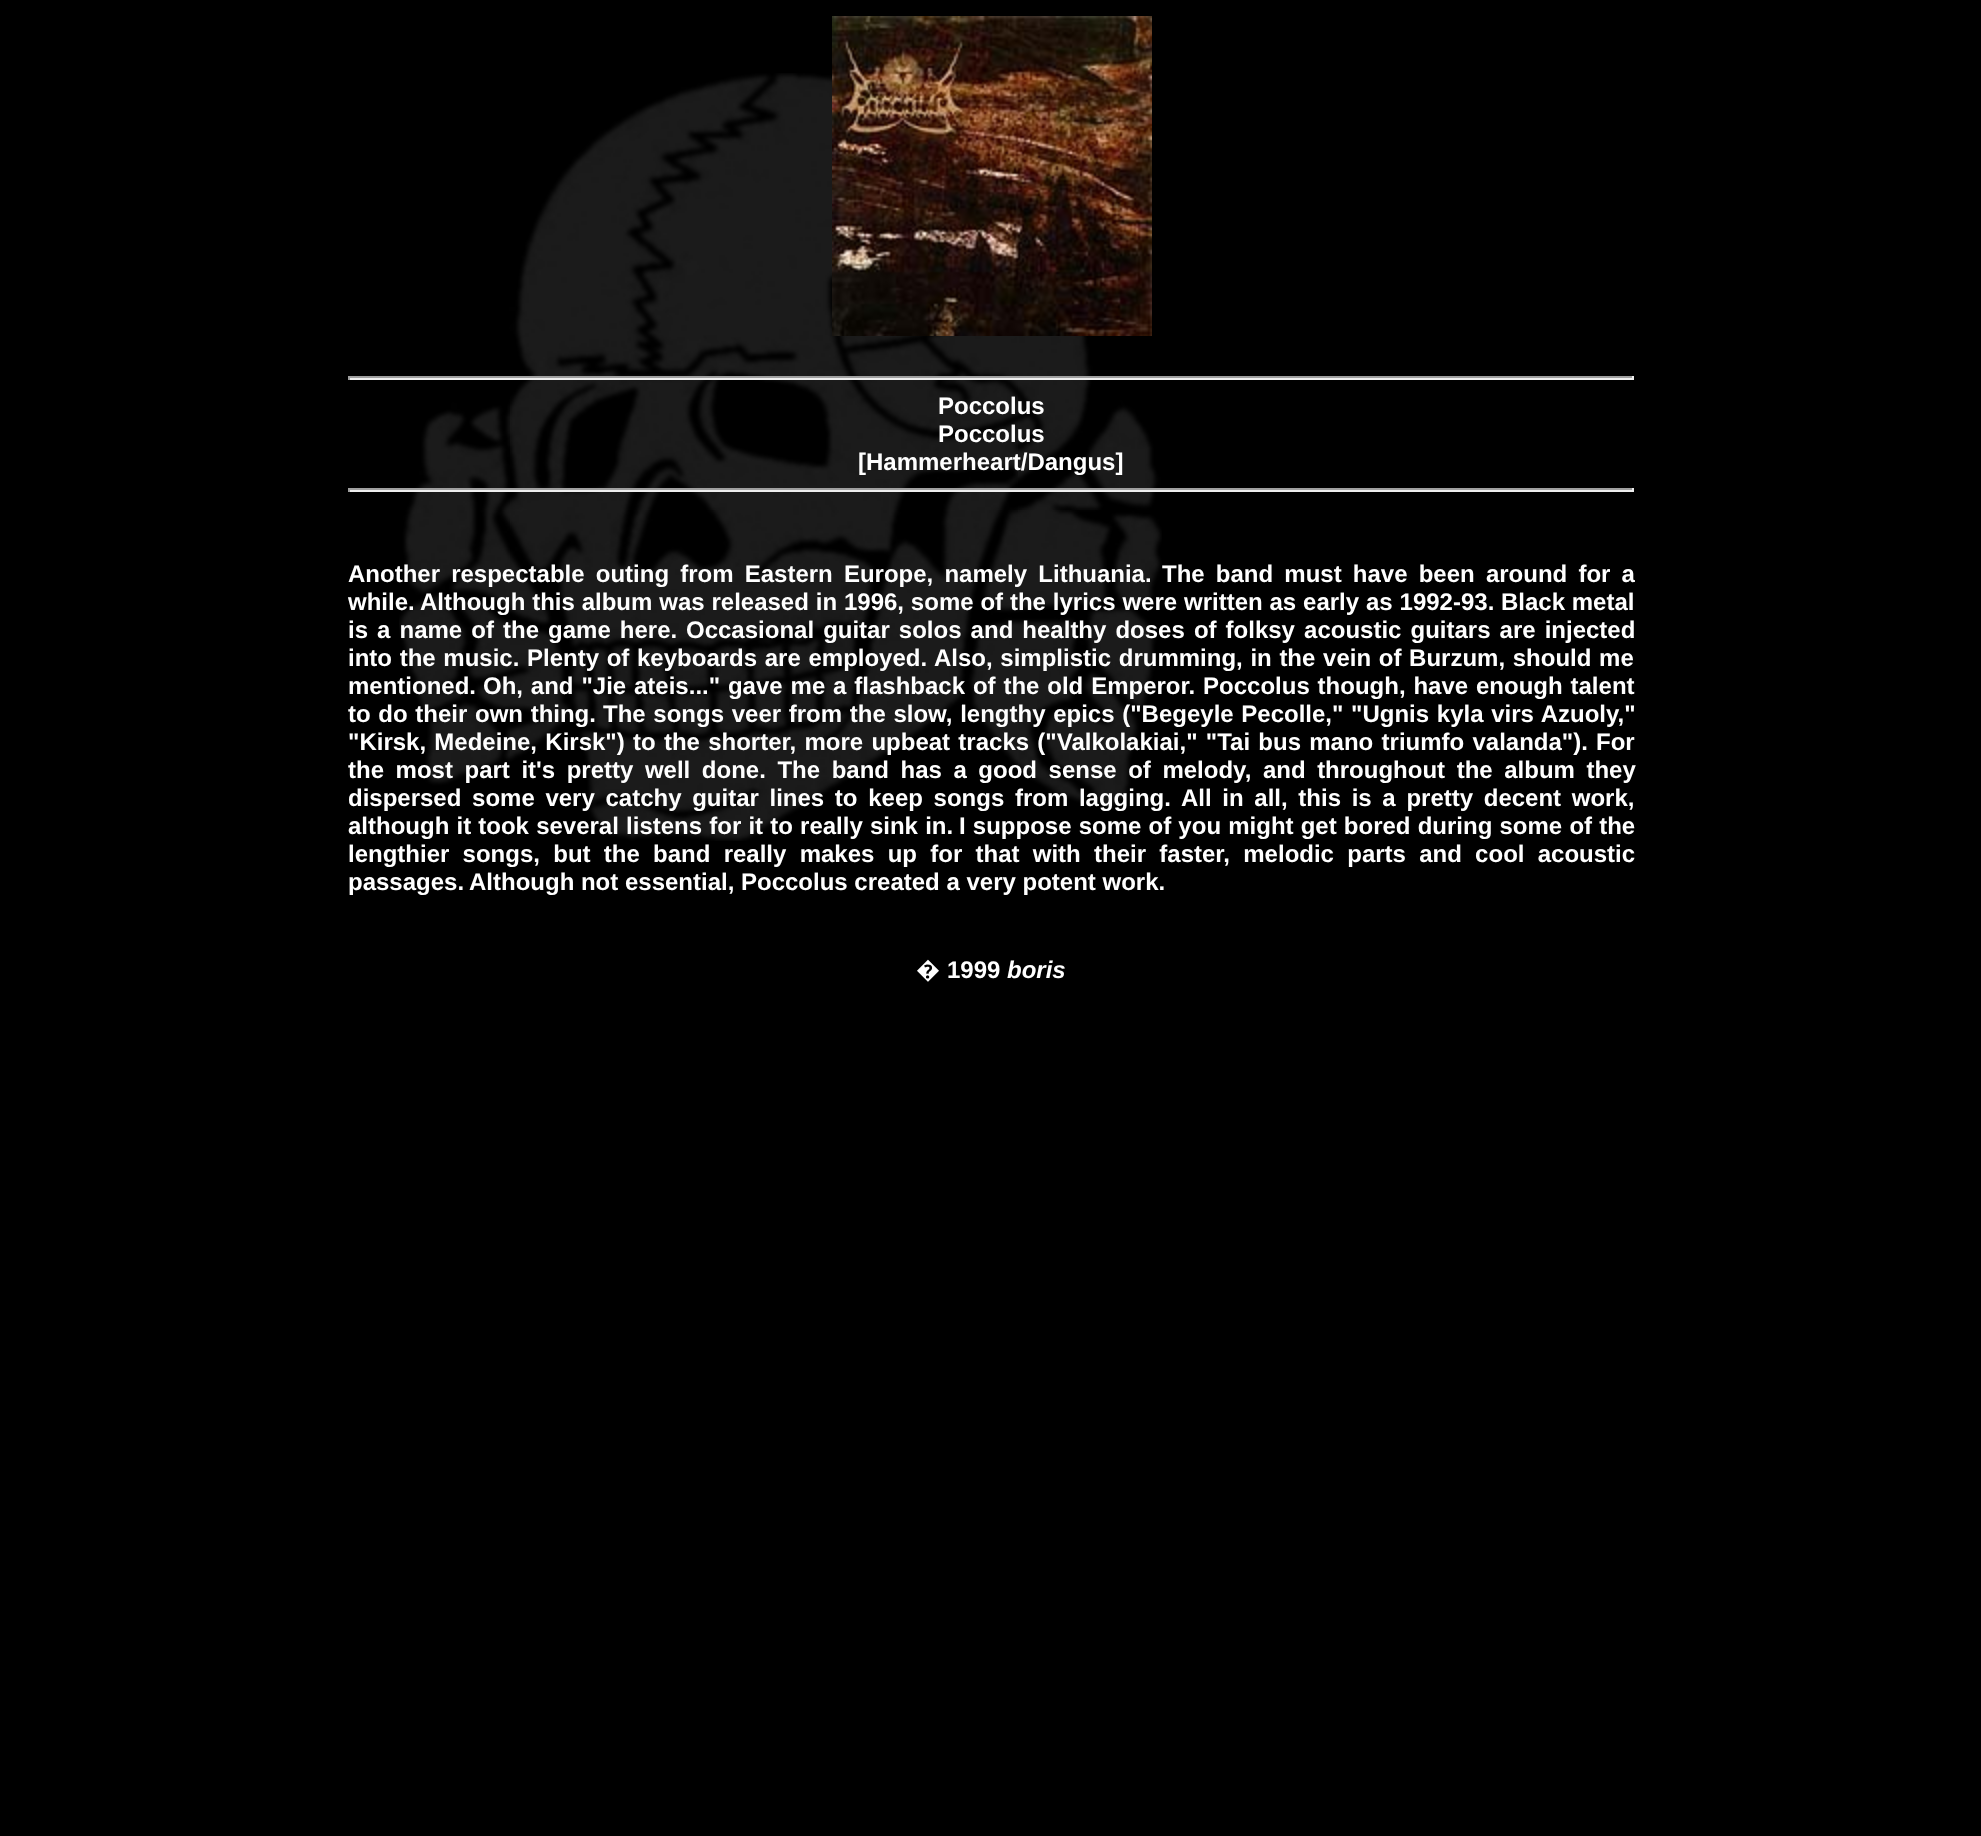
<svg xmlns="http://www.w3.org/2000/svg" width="1981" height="1836">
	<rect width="100%" height="100%" fill="#000000" />
	<image x="399" y="73" width="763" height="768" href="assets/img1.png" />
	<image x="832" y="16" width="320" height="320" href="assets/img2.png" />
	<rect x="348" y="376" width="1286" height="2" fill="#9F9F9F" />
	<rect x="1632" y="376" width="2" height="4" fill="#EEEEEE" />
	<rect x="348" y="378" width="1286" height="2" fill="#EEEEEE" />
	<rect x="348" y="376" width="2" height="4" fill="#9F9F9F" />
	<g font-family="Liberation Sans" font-size="24" font-weight="700" fill="#FFFFFF">
		<text x="938" y="414">Poccolus</text>
		<text x="938" y="442">Poccolus</text>
		<text x="858" y="470">[Hammerheart/Dangus]</text>
	</g>
	<rect x="348" y="488" width="1286" height="2" fill="#9F9F9F" />
	<rect x="1632" y="488" width="2" height="4" fill="#EEEEEE" />
	<rect x="348" y="490" width="1286" height="2" fill="#EEEEEE" />
	<rect x="348" y="488" width="2" height="4" fill="#9F9F9F" />
	<g font-family="Liberation Sans" font-size="24" font-weight="700" fill="#FFFFFF">
		<text x="348" y="582" word-spacing="4.5">Another respectable outing from Eastern Europe, namely Lithuania.</text>
		<text x="1162" y="582" word-spacing="4.5">The band must have been around for a</text>
		<text x="348" y="610">while.</text>
		<text x="420" y="610" word-spacing="0.2">Although this album was released in 1996, some of the lyrics were written as early as 1992-93.</text>
		<text x="1501" y="610">Black metal</text>
		<text x="348" y="638" word-spacing="2.4">is a name of the game here.</text>
		<text x="686" y="638" word-spacing="2.4">Occasional guitar solos and healthy doses of folksy acoustic guitars are injected</text>
		<text x="348" y="666" word-spacing="1">into the music.</text>
		<text x="527" y="666" word-spacing="1">Plenty of keyboards are employed.</text>
		<text x="934" y="666" word-spacing="1">Also, simplistic drumming, in the vein of Burzum, should me</text>
		<text x="348" y="694">mentioned.</text>
		<text x="483" y="694" word-spacing="1.2">Oh, and "Jie ateis..." gave me a flashback of the old Emperor. Poccolus though, have enough talent</text>
		<text x="348" y="722" word-spacing="1">to do their own thing.</text>
		<text x="603" y="722" word-spacing="1">The songs veer from the slow, lengthy epics ("Begeyle Pecolle," "Ugnis kyla virs Azuoly,"</text>
		<text x="348" y="750" word-spacing="1.6">"Kirsk, Medeine, Kirsk") to the shorter, more upbeat tracks ("Valkolakiai," "Tai bus mano triumfo valanda").</text>
		<text x="1596" y="750">For</text>
		<text x="348" y="778" word-spacing="4.9">the most part it's pretty well done. The band has a good sense of melody, and throughout the album they</text>
		<text x="348" y="806" word-spacing="4">dispersed some very catchy guitar lines to keep songs from lagging.</text>
		<text x="1181" y="806" word-spacing="4">All in all, this is a pretty decent work,</text>
		<text x="348" y="834" word-spacing="0.5">although it took several listens for it to really sink in.</text>
		<text x="959" y="834" word-spacing="0.5">I suppose some of you might get bored during some of the</text>
		<text x="348" y="862" word-spacing="6.6">lengthier songs, but the band really makes up for that with their faster, melodic parts and cool acoustic</text>
		<text x="348" y="890">passages.</text>
		<text x="469" y="890">Although not essential, Poccolus created a very potent work.</text>
	</g>
	<text x="916" y="978" font-family="Noto Sans" font-size="24" font-weight="700" fill="#FFFFFF">�</text>
	<text x="947" y="978" font-family="Liberation Sans" font-size="24" font-weight="700" fill="#FFFFFF">1999</text>
	<text x="1007" y="978" font-family="Liberation Sans" font-size="24" font-weight="700" font-style="italic" fill="#FFFFFF">boris</text>
</svg>
